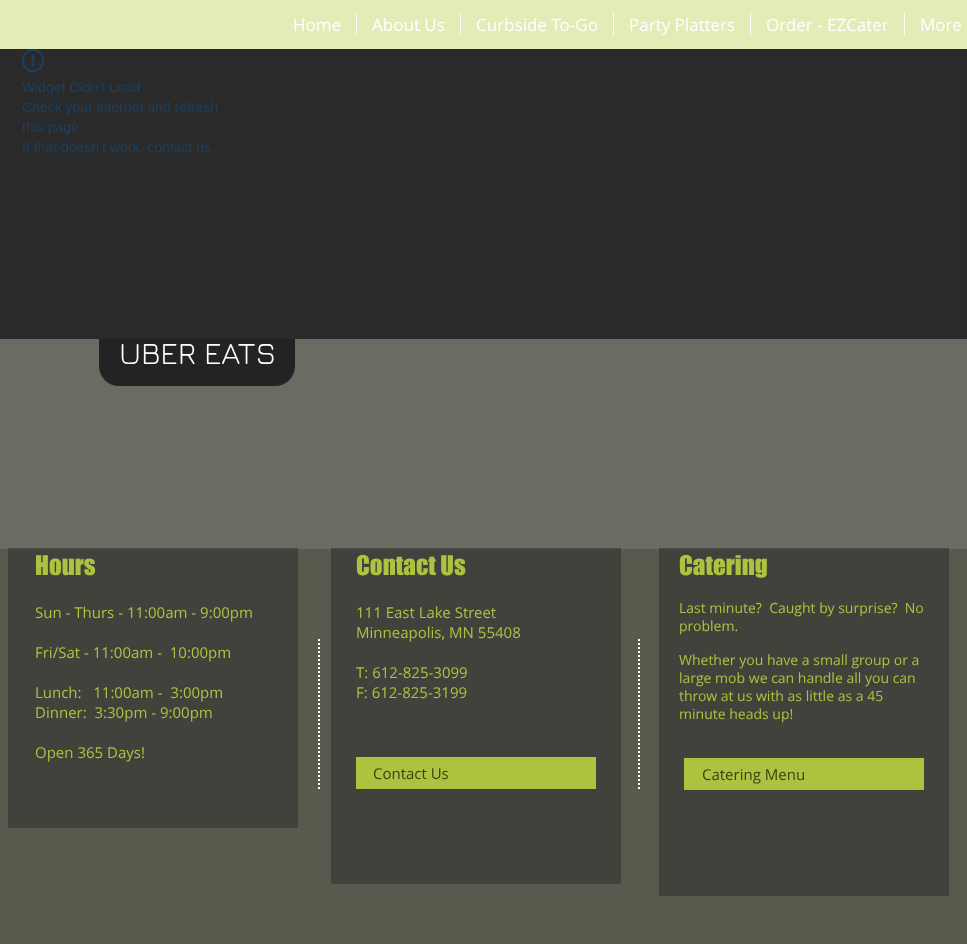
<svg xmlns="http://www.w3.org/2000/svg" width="967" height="944">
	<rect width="100%" height="100%" fill="#E3EBB6" />
	<text x="293" y="31" font-family="Open Sans" font-size="17" fill="#FFFFFF">Home</text>
	<rect x="356" y="13" width="1" height="22" fill="#FFFFFF" />
	<text x="372" y="31" font-family="Open Sans" font-size="17" fill="#FFFFFF">About Us</text>
	<rect x="460" y="13" width="1" height="22" fill="#FFFFFF" />
	<text x="476" y="31" font-family="Open Sans" font-size="17" fill="#FFFFFF">Curbside To-Go</text>
	<rect x="613" y="13" width="1" height="22" fill="#FFFFFF" />
	<text x="629" y="31" font-family="Open Sans" font-size="17" fill="#FFFFFF">Party Platters</text>
	<rect x="750" y="13" width="1" height="22" fill="#FFFFFF" />
	<text x="766" y="31" font-family="Open Sans" font-size="17" fill="#FFFFFF">Order - EZCater</text>
	<rect x="904" y="13" width="1" height="22" fill="#FFFFFF" />
	<text x="920" y="31" font-family="Open Sans" font-size="17" fill="#FFFFFF">More</text>
	<rect x="0" y="339" width="967" height="210" fill="#6A6C64" />
	<rect x="99" y="320" width="196" height="66" rx="20" fill="#232323" />
	<rect x="0" y="49" width="967" height="290" fill="#2A2A2A" />
	<image x="22" y="49" width="22" height="23" href="assets/img1.png" />
	<g font-family="Liberation Sans" font-size="14" fill="#174165">
		<text x="22" y="92">Widget Didn’t Load</text>
		<text x="22" y="112">Check your internet and refresh</text>
		<text x="22" y="132">this page.</text>
		<text x="22" y="152">If that doesn’t work, contact us.</text>
	</g>
	<text x="119" y="364" font-family="Jura" font-size="31" fill="#FFFFFF">UBER EATS</text>
	<rect x="0" y="549" width="967" height="395" fill="#585A4D" />
	<rect x="659" y="549" width="290" height="347" fill="#41423C" />
	<rect x="331" y="549" width="290" height="335" fill="#41423C" />
	<rect x="8" y="549" width="290" height="279" fill="#41423C" />
	<text x="35" y="575" font-family="'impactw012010'" font-size="25" fill="#AEC240">Hours</text>
	<g font-family="Open Sans" font-size="15" fill="#AEC240">
		<text x="35" y="618">Sun - Thurs - 11:00am - 9:00pm</text>
		<text x="35" y="658" xml:space="preserve">Fri/Sat - 11:00am -  10:00pm</text>
		<text x="35" y="698" xml:space="preserve">Lunch:   11:00am -  3:00pm</text>
		<text x="35" y="718" xml:space="preserve">Dinner:  3:30pm - 9:00pm</text>
		<text x="35" y="758">Open 365 Days!</text>
	</g>
	<path d="M319 639V789" fill="none" stroke="#FFFFFF" stroke-width="2" stroke-dasharray="2 2" />
	<text x="356" y="575" font-family="'impactw012010'" font-size="25" fill="#AEC240">Contact Us</text>
	<g font-family="Open Sans" font-size="15" fill="#AEC240">
		<text x="356" y="618">111 East Lake Street</text>
		<text x="356" y="638">Minneapolis, MN 55408</text>
		<text x="356" y="678">T: 612-825-3099</text>
		<text x="356" y="698">F: 612-825-3199</text>
	</g>
	<rect x="356" y="757" width="240" height="32" fill="#AEC240" />
	<text x="373" y="779" font-family="Open Sans" font-size="15" fill="#3A4115">Contact Us</text>
	<path d="M639 639V789" fill="none" stroke="#FFFFFF" stroke-width="2" stroke-dasharray="2 2" />
	<text x="679" y="575" font-family="'impactw012010'" font-size="25" fill="#AEC240">Catering</text>
	<g font-family="Open Sans" font-size="14" fill="#AEC240">
		<text x="679" y="613" xml:space="preserve">Last minute?  Caught by surprise?  No</text>
		<text x="679" y="631">problem.</text>
		<text x="679" y="665">Whether you have a small group or a</text>
		<text x="679" y="683">large mob we can handle all you can</text>
		<text x="679" y="701">throw at us with as little as a 45</text>
		<text x="679" y="719">minute heads up!</text>
	</g>
	<rect x="684" y="758" width="240" height="32" fill="#AEC240" />
	<text x="702" y="780" font-family="Open Sans" font-size="15" fill="#3A4115">Catering Menu</text>
	<rect x="659" y="548" width="290" height="1" fill="#4A4B47" />
	<rect x="331" y="548" width="290" height="1" fill="#4A4B47" />
	<rect x="8" y="548" width="290" height="1" fill="#4A4B47" />
</svg>
